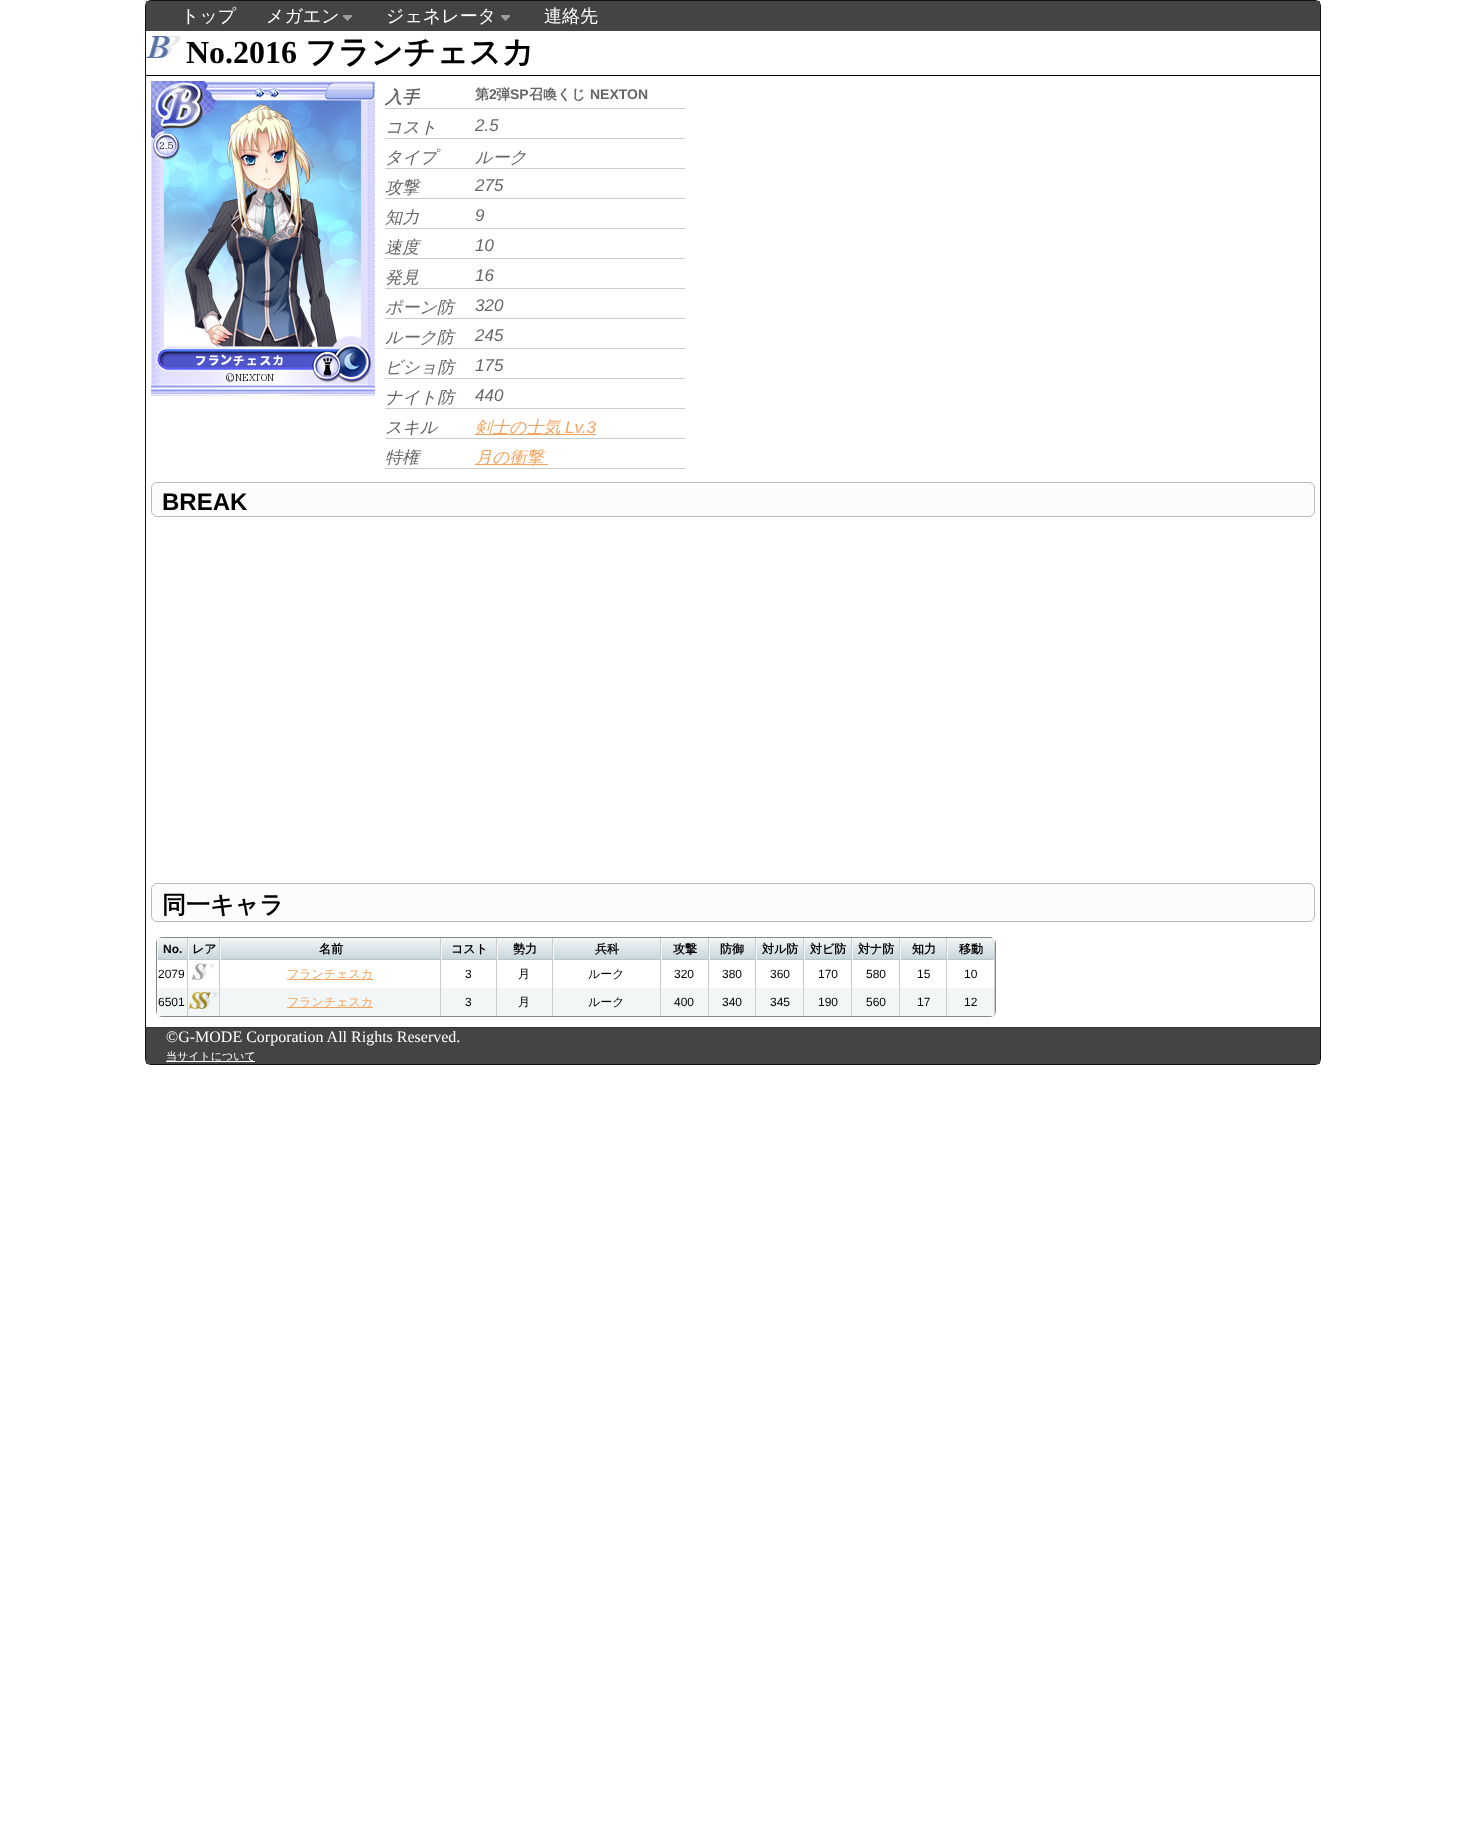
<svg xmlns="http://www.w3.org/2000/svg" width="1465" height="1843">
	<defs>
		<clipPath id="clip1"><path d="M163 938H188V960H157V944C157 940.5 159.5 938 163 938Z" /></clipPath>
		<linearGradient id="g1" gradientUnits="userSpaceOnUse" x1="173" y1="939" x2="173" y2="959"><stop offset="0" stop-color="#F2F5F6" /><stop offset="0.37" stop-color="#E3EAED" /><stop offset="1" stop-color="#C8D7DC" /></linearGradient>
		<linearGradient id="g2" gradientUnits="userSpaceOnUse" x1="204" y1="939" x2="204" y2="959"><stop offset="0" stop-color="#F2F5F6" /><stop offset="0.37" stop-color="#E3EAED" /><stop offset="1" stop-color="#C8D7DC" /></linearGradient>
		<linearGradient id="g3" gradientUnits="userSpaceOnUse" x1="331" y1="939" x2="331" y2="959"><stop offset="0" stop-color="#F2F5F6" /><stop offset="0.37" stop-color="#E3EAED" /><stop offset="1" stop-color="#C8D7DC" /></linearGradient>
		<linearGradient id="g4" gradientUnits="userSpaceOnUse" x1="469" y1="939" x2="469" y2="959"><stop offset="0" stop-color="#F2F5F6" /><stop offset="0.37" stop-color="#E3EAED" /><stop offset="1" stop-color="#C8D7DC" /></linearGradient>
		<linearGradient id="g5" gradientUnits="userSpaceOnUse" x1="525" y1="939" x2="525" y2="959"><stop offset="0" stop-color="#F2F5F6" /><stop offset="0.37" stop-color="#E3EAED" /><stop offset="1" stop-color="#C8D7DC" /></linearGradient>
		<linearGradient id="g6" gradientUnits="userSpaceOnUse" x1="607" y1="939" x2="607" y2="959"><stop offset="0" stop-color="#F2F5F6" /><stop offset="0.37" stop-color="#E3EAED" /><stop offset="1" stop-color="#C8D7DC" /></linearGradient>
		<linearGradient id="g7" gradientUnits="userSpaceOnUse" x1="685" y1="939" x2="685" y2="959"><stop offset="0" stop-color="#F2F5F6" /><stop offset="0.37" stop-color="#E3EAED" /><stop offset="1" stop-color="#C8D7DC" /></linearGradient>
		<linearGradient id="g8" gradientUnits="userSpaceOnUse" x1="733" y1="939" x2="733" y2="959"><stop offset="0" stop-color="#F2F5F6" /><stop offset="0.37" stop-color="#E3EAED" /><stop offset="1" stop-color="#C8D7DC" /></linearGradient>
		<linearGradient id="g9" gradientUnits="userSpaceOnUse" x1="780" y1="939" x2="780" y2="959"><stop offset="0" stop-color="#F2F5F6" /><stop offset="0.37" stop-color="#E3EAED" /><stop offset="1" stop-color="#C8D7DC" /></linearGradient>
		<linearGradient id="g10" gradientUnits="userSpaceOnUse" x1="828" y1="939" x2="828" y2="959"><stop offset="0" stop-color="#F2F5F6" /><stop offset="0.37" stop-color="#E3EAED" /><stop offset="1" stop-color="#C8D7DC" /></linearGradient>
		<linearGradient id="g11" gradientUnits="userSpaceOnUse" x1="876" y1="939" x2="876" y2="959"><stop offset="0" stop-color="#F2F5F6" /><stop offset="0.37" stop-color="#E3EAED" /><stop offset="1" stop-color="#C8D7DC" /></linearGradient>
		<linearGradient id="g12" gradientUnits="userSpaceOnUse" x1="924" y1="939" x2="924" y2="959"><stop offset="0" stop-color="#F2F5F6" /><stop offset="0.37" stop-color="#E3EAED" /><stop offset="1" stop-color="#C8D7DC" /></linearGradient>
		<clipPath id="clip2"><path d="M947 938H989C992.5 938 995 940.5 995 944V960H947Z" /></clipPath>
		<linearGradient id="g13" gradientUnits="userSpaceOnUse" x1="971" y1="919" x2="971" y2="939"><stop offset="0" stop-color="#F2F5F6" /><stop offset="0.37" stop-color="#E3EAED" /><stop offset="1" stop-color="#C8D7DC" /></linearGradient>
		<linearGradient id="g14" gradientUnits="userSpaceOnUse" x1="971" y1="939" x2="971" y2="959"><stop offset="0" stop-color="#F2F5F6" /><stop offset="0.37" stop-color="#E3EAED" /><stop offset="1" stop-color="#C8D7DC" /></linearGradient>
	</defs>
	<rect width="100%" height="100%" fill="#FFFFFF" />
	<rect x="145.5" y="0.5" width="1175" height="1064" rx="5.5" fill="none" stroke="#111111" />
	<rect x="146" y="1" width="1174" height="30" fill="#444444" />
	<g font-family="WenQuanYi Zen Hei" font-size="18" font-weight="500" fill="#FFFFFF">
		<text x="181" y="22">トップ</text>
		<text x="266" y="22">メガエン</text>
	</g>
	<image x="343" y="15" width="9" height="6" href="assets/img1.png" />
	<text x="386" y="22" font-family="WenQuanYi Zen Hei" font-size="18" font-weight="500" fill="#FFFFFF">ジェネレータ</text>
	<image x="501" y="15" width="9" height="6" href="assets/img1.png" />
	<text x="544" y="22" font-family="WenQuanYi Zen Hei" font-size="18" font-weight="500" fill="#FFFFFF">連絡先</text>
	<image x="146" y="36" width="35" height="22" href="assets/img2.png" />
	<rect x="146" y="75" width="1174" height="1" fill="#000000" />
	<text x="186" y="63" font-family="Liberation Serif" font-size="32" font-weight="700" fill="#000000">No.2016</text>
	<text x="305" y="63" font-family="WenQuanYi Zen Hei" font-size="32" font-weight="700" fill="#000000">フランチェスカ</text>
	<image x="151" y="81" width="224" height="315" href="assets/img3.png" />
	<rect x="385" y="108" width="300" height="1" fill="#CCCCCC" />
	<text x="385" y="103" font-family="WenQuanYi Zen Hei" font-size="17" font-weight="700" font-style="italic" fill="#666666">入手</text>
	<text x="475" y="99" font-family="WenQuanYi Zen Hei" font-size="14" font-weight="700" fill="#666666">第</text>
	<text x="489" y="99" font-family="Liberation Sans" font-size="14" font-weight="700" fill="#666666">2</text>
	<text x="496" y="99" font-family="WenQuanYi Zen Hei" font-size="14" font-weight="700" fill="#666666">弾</text>
	<text x="510" y="99" font-family="Liberation Sans" font-size="14" font-weight="700" fill="#666666">SP</text>
	<text x="529" y="99" font-family="WenQuanYi Zen Hei" font-size="14" font-weight="700" fill="#666666">召喚くじ</text>
	<text x="590" y="99" font-family="Liberation Sans" font-size="14" font-weight="700" fill="#666666">NEXTON</text>
	<rect x="385" y="138" width="300" height="1" fill="#CCCCCC" />
	<text x="385" y="133" font-family="WenQuanYi Zen Hei" font-size="17" font-weight="500" font-style="italic" fill="#666666">コスト</text>
	<text x="475" y="131" font-family="Liberation Sans" font-size="17" font-style="italic" fill="#666666">2.5</text>
	<rect x="385" y="168" width="300" height="1" fill="#CCCCCC" />
	<g font-family="WenQuanYi Zen Hei" font-size="17" font-weight="500" font-style="italic" fill="#666666">
		<text x="385" y="163">タイプ</text>
		<text x="475" y="163">ルーク</text>
	</g>
	<rect x="385" y="198" width="300" height="1" fill="#CCCCCC" />
	<text x="385" y="193" font-family="WenQuanYi Zen Hei" font-size="17" font-weight="500" font-style="italic" fill="#666666">攻撃</text>
	<text x="475" y="191" font-family="Liberation Sans" font-size="17" font-style="italic" fill="#666666">275</text>
	<rect x="385" y="228" width="300" height="1" fill="#CCCCCC" />
	<text x="385" y="223" font-family="WenQuanYi Zen Hei" font-size="17" font-weight="500" font-style="italic" fill="#666666">知力</text>
	<text x="475" y="221" font-family="Liberation Sans" font-size="17" font-style="italic" fill="#666666">9</text>
	<rect x="385" y="258" width="300" height="1" fill="#CCCCCC" />
	<text x="385" y="253" font-family="WenQuanYi Zen Hei" font-size="17" font-weight="500" font-style="italic" fill="#666666">速度</text>
	<text x="475" y="251" font-family="Liberation Sans" font-size="17" font-style="italic" fill="#666666">10</text>
	<rect x="385" y="288" width="300" height="1" fill="#CCCCCC" />
	<text x="385" y="283" font-family="WenQuanYi Zen Hei" font-size="17" font-weight="500" font-style="italic" fill="#666666">発見</text>
	<text x="475" y="281" font-family="Liberation Sans" font-size="17" font-style="italic" fill="#666666">16</text>
	<rect x="385" y="318" width="300" height="1" fill="#CCCCCC" />
	<text x="385" y="313" font-family="WenQuanYi Zen Hei" font-size="17" font-weight="500" font-style="italic" fill="#666666">ポーン防</text>
	<text x="475" y="311" font-family="Liberation Sans" font-size="17" font-style="italic" fill="#666666">320</text>
	<rect x="385" y="348" width="300" height="1" fill="#CCCCCC" />
	<text x="385" y="343" font-family="WenQuanYi Zen Hei" font-size="17" font-weight="500" font-style="italic" fill="#666666">ルーク防</text>
	<text x="475" y="341" font-family="Liberation Sans" font-size="17" font-style="italic" fill="#666666">245</text>
	<rect x="385" y="378" width="300" height="1" fill="#CCCCCC" />
	<text x="385" y="373" font-family="WenQuanYi Zen Hei" font-size="17" font-weight="500" font-style="italic" fill="#666666">ビショ防</text>
	<text x="475" y="371" font-family="Liberation Sans" font-size="17" font-style="italic" fill="#666666">175</text>
	<rect x="385" y="408" width="300" height="1" fill="#CCCCCC" />
	<text x="385" y="403" font-family="WenQuanYi Zen Hei" font-size="17" font-weight="500" font-style="italic" fill="#666666">ナイト防</text>
	<text x="475" y="401" font-family="Liberation Sans" font-size="17" font-style="italic" fill="#666666">440</text>
	<rect x="385" y="438" width="300" height="1" fill="#CCCCCC" />
	<text x="385" y="433" font-family="WenQuanYi Zen Hei" font-size="17" font-weight="500" font-style="italic" fill="#666666">スキル</text>
	<rect x="475" y="434" width="121" height="1" fill="#F4A460" />
	<text x="475" y="433" font-family="WenQuanYi Zen Hei" font-size="17" font-weight="500" font-style="italic" fill="#F4A460">剣士の士気</text>
	<text x="565" y="433" font-family="Liberation Sans" font-size="17" font-style="italic" fill="#F4A460">Lv.3</text>
	<rect x="385" y="468" width="300" height="1" fill="#CCCCCC" />
	<text x="385" y="463" font-family="WenQuanYi Zen Hei" font-size="17" font-weight="500" font-style="italic" fill="#666666">特権</text>
	<rect x="475" y="464" width="73" height="1" fill="#F4A460" />
	<text x="475" y="463" font-family="WenQuanYi Zen Hei" font-size="17" font-weight="500" font-style="italic" fill="#F4A460">月の衝撃</text>
	<rect x="151.5" y="482.5" width="1163" height="34" rx="5.5" fill="#FCFCFC" stroke="#BBBBBB" />
	<text x="162" y="510" font-family="Liberation Sans" font-size="24" font-weight="700" fill="#000000">BREAK</text>
	<rect x="151.5" y="883.5" width="1163" height="38" rx="5.5" fill="#FCFCFC" stroke="#BBBBBB" />
	<text x="162" y="913" font-family="WenQuanYi Zen Hei" font-size="24" font-weight="700" fill="#000000">同一キャラ</text>
	<rect x="156.5" y="937.5" width="839" height="79" rx="5.5" fill="none" stroke="#888888" />
	<rect x="157" y="938" width="838" height="22" fill="#F3F6F7" />
	<g clip-path="url(#clip1)">
		<rect x="157" y="939" width="30" height="20" fill="url(#g1)" />
	</g>
	<path d="M188 938L187 939V959L188 960Z" fill="#CCCCCC" />
	<path d="M188 960L187 959H158L157 960Z" fill="#B7C6CB" />
	<path d="M157 960L158 959V944C158 942.5 158.5 941 159.5 940.5L158.5 939.5C157.5 941 157 942 157 944Z" fill="#F2F5F6" />
	<text x="163" y="953" font-family="Liberation Sans" font-size="12" font-weight="700" fill="#000000">No.</text>
	<rect x="189" y="940" width="30" height="19" fill="url(#g2)" />
	<rect x="219" y="938" width="1" height="50" fill="#CCCCCC" />
	<rect x="188" y="959" width="32" height="1" fill="#B7C6CB" />
	<rect x="188" y="959" width="1" height="1" fill="#F2F5F6" />
	<text x="192" y="953" font-family="WenQuanYi Zen Hei" font-size="12" font-weight="700" fill="#000000">レア</text>
	<rect x="221" y="940" width="219" height="19" fill="url(#g3)" />
	<rect x="440" y="938" width="1" height="50" fill="#CCCCCC" />
	<rect x="220" y="959" width="221" height="1" fill="#B7C6CB" />
	<rect x="220" y="959" width="1" height="1" fill="#F2F5F6" />
	<text x="319" y="953" font-family="WenQuanYi Zen Hei" font-size="12" font-weight="700" fill="#000000">名前</text>
	<rect x="442" y="940" width="54" height="19" fill="url(#g4)" />
	<rect x="496" y="938" width="1" height="50" fill="#CCCCCC" />
	<rect x="441" y="959" width="56" height="1" fill="#B7C6CB" />
	<rect x="441" y="959" width="1" height="1" fill="#F2F5F6" />
	<text x="451" y="953" font-family="WenQuanYi Zen Hei" font-size="12" font-weight="700" fill="#000000">コスト</text>
	<rect x="498" y="940" width="54" height="19" fill="url(#g5)" />
	<rect x="552" y="938" width="1" height="50" fill="#CCCCCC" />
	<rect x="497" y="959" width="56" height="1" fill="#B7C6CB" />
	<rect x="497" y="959" width="1" height="1" fill="#F2F5F6" />
	<text x="513" y="953" font-family="WenQuanYi Zen Hei" font-size="12" font-weight="700" fill="#000000">勢力</text>
	<rect x="554" y="940" width="106" height="19" fill="url(#g6)" />
	<rect x="660" y="938" width="1" height="50" fill="#CCCCCC" />
	<rect x="553" y="959" width="108" height="1" fill="#B7C6CB" />
	<rect x="553" y="959" width="1" height="1" fill="#F2F5F6" />
	<text x="595" y="953" font-family="WenQuanYi Zen Hei" font-size="12" font-weight="700" fill="#000000">兵科</text>
	<rect x="662" y="940" width="46" height="19" fill="url(#g7)" />
	<rect x="708" y="938" width="1" height="50" fill="#CCCCCC" />
	<rect x="661" y="959" width="48" height="1" fill="#B7C6CB" />
	<rect x="661" y="959" width="1" height="1" fill="#F2F5F6" />
	<text x="673" y="953" font-family="WenQuanYi Zen Hei" font-size="12" font-weight="700" fill="#000000">攻撃</text>
	<rect x="710" y="940" width="45" height="19" fill="url(#g8)" />
	<rect x="755" y="938" width="1" height="50" fill="#CCCCCC" />
	<rect x="709" y="959" width="47" height="1" fill="#B7C6CB" />
	<rect x="709" y="959" width="1" height="1" fill="#F2F5F6" />
	<text x="720" y="953" font-family="WenQuanYi Zen Hei" font-size="12" font-weight="700" fill="#000000">防御</text>
	<rect x="757" y="940" width="46" height="19" fill="url(#g9)" />
	<rect x="803" y="938" width="1" height="50" fill="#CCCCCC" />
	<rect x="756" y="959" width="48" height="1" fill="#B7C6CB" />
	<rect x="756" y="959" width="1" height="1" fill="#F2F5F6" />
	<text x="762" y="953" font-family="WenQuanYi Zen Hei" font-size="12" font-weight="700" fill="#000000">対ル防</text>
	<rect x="805" y="940" width="46" height="19" fill="url(#g10)" />
	<rect x="851" y="938" width="1" height="50" fill="#CCCCCC" />
	<rect x="804" y="959" width="48" height="1" fill="#B7C6CB" />
	<rect x="804" y="959" width="1" height="1" fill="#F2F5F6" />
	<text x="810" y="953" font-family="WenQuanYi Zen Hei" font-size="12" font-weight="700" fill="#000000">対ビ防</text>
	<rect x="853" y="940" width="46" height="19" fill="url(#g11)" />
	<rect x="899" y="938" width="1" height="50" fill="#CCCCCC" />
	<rect x="852" y="959" width="48" height="1" fill="#B7C6CB" />
	<rect x="852" y="959" width="1" height="1" fill="#F2F5F6" />
	<text x="858" y="953" font-family="WenQuanYi Zen Hei" font-size="12" font-weight="700" fill="#000000">対ナ防</text>
	<rect x="901" y="940" width="45" height="19" fill="url(#g12)" />
	<rect x="946" y="938" width="1" height="50" fill="#CCCCCC" />
	<rect x="900" y="959" width="47" height="1" fill="#B7C6CB" />
	<rect x="900" y="959" width="1" height="1" fill="#F2F5F6" />
	<text x="912" y="953" font-family="WenQuanYi Zen Hei" font-size="12" font-weight="700" fill="#000000">知力</text>
	<g clip-path="url(#clip2)">
		<rect x="947" y="938" width="48" height="1" fill="url(#g13)" />
		<rect x="948" y="939" width="47" height="20" fill="url(#g14)" />
	</g>
	<path d="M947 938L948 939H989C990 939 992 940 993 940C992 939 990 938 989 938Z" fill="#F3F6F7" />
	<path d="M995 960V944C995 942.5 994 941 993 940L992.5 940.5C993.5 941 994 942.5 994 944V959Z" fill="#CCCCCC" />
	<path d="M995 960L994 959H948L947 960Z" fill="#B7C6CB" />
	<path d="M947 938V960L948 959V939Z" fill="#F2F5F6" />
	<text x="959" y="953" font-family="WenQuanYi Zen Hei" font-size="12" font-weight="700" fill="#000000">移動</text>
	<rect x="187" y="960" width="1" height="28" fill="#CCCCCC" />
	<text x="158" y="978" font-family="Liberation Sans" font-size="12" fill="#000000">2079</text>
	<image x="191" y="963" width="24" height="17" href="assets/img4.png" />
	<rect x="287" y="979" width="86" height="1" fill="#F4A460" />
	<text x="287" y="978" font-family="WenQuanYi Zen Hei" font-size="12" font-weight="500" fill="#F4A460">フランチェスカ</text>
	<text x="465" y="978" font-family="Liberation Sans" font-size="12" fill="#000000">3</text>
	<g font-family="WenQuanYi Zen Hei" font-size="12" font-weight="500" fill="#000000">
		<text x="518" y="978">月</text>
		<text x="588" y="978">ルーク</text>
	</g>
	<g font-family="Liberation Sans" font-size="12" fill="#000000">
		<text x="674" y="978">320</text>
		<text x="722" y="978">380</text>
		<text x="770" y="978">360</text>
		<text x="818" y="978">170</text>
		<text x="866" y="978">580</text>
		<text x="917" y="978">15</text>
	</g>
	<rect x="994" y="960" width="1" height="56" fill="#CCCCCC" />
	<text x="964" y="978" font-family="Liberation Sans" font-size="12" fill="#000000">10</text>
	<rect x="157" y="988" width="837" height="28" fill="#F3F6F7" />
	<rect x="187" y="988" width="1" height="28" fill="#CCCCCC" />
	<text x="158" y="1006" font-family="Liberation Sans" font-size="12" fill="#000000">6501</text>
	<rect x="219" y="988" width="1" height="28" fill="#CCCCCC" />
	<image x="188" y="992" width="31" height="17" href="assets/img5.png" />
	<rect x="440" y="988" width="1" height="28" fill="#CCCCCC" />
	<rect x="287" y="1007" width="86" height="1" fill="#F4A460" />
	<text x="287" y="1006" font-family="WenQuanYi Zen Hei" font-size="12" font-weight="500" fill="#F4A460">フランチェスカ</text>
	<rect x="496" y="988" width="1" height="28" fill="#CCCCCC" />
	<text x="465" y="1006" font-family="Liberation Sans" font-size="12" fill="#000000">3</text>
	<rect x="552" y="988" width="1" height="28" fill="#CCCCCC" />
	<text x="518" y="1006" font-family="WenQuanYi Zen Hei" font-size="12" font-weight="500" fill="#000000">月</text>
	<rect x="660" y="988" width="1" height="28" fill="#CCCCCC" />
	<text x="588" y="1006" font-family="WenQuanYi Zen Hei" font-size="12" font-weight="500" fill="#000000">ルーク</text>
	<rect x="708" y="988" width="1" height="28" fill="#CCCCCC" />
	<text x="674" y="1006" font-family="Liberation Sans" font-size="12" fill="#000000">400</text>
	<rect x="755" y="988" width="1" height="28" fill="#CCCCCC" />
	<text x="722" y="1006" font-family="Liberation Sans" font-size="12" fill="#000000">340</text>
	<rect x="803" y="988" width="1" height="28" fill="#CCCCCC" />
	<text x="770" y="1006" font-family="Liberation Sans" font-size="12" fill="#000000">345</text>
	<rect x="851" y="988" width="1" height="28" fill="#CCCCCC" />
	<text x="818" y="1006" font-family="Liberation Sans" font-size="12" fill="#000000">190</text>
	<rect x="899" y="988" width="1" height="28" fill="#CCCCCC" />
	<text x="866" y="1006" font-family="Liberation Sans" font-size="12" fill="#000000">560</text>
	<rect x="946" y="988" width="1" height="28" fill="#CCCCCC" />
	<g font-family="Liberation Sans" font-size="12" fill="#000000">
		<text x="917" y="1006">17</text>
		<text x="964" y="1006">12</text>
	</g>
	<rect x="146" y="1028" width="1174" height="36" fill="#444444" />
	<rect x="146" y="1027" width="1174" height="1" fill="#333333" />
	<text x="166" y="1042" font-family="Liberation Serif" font-size="16" fill="#FFFFFF">©G-MODE Corporation All Rights Reserved.</text>
	<rect x="166" y="1061" width="89" height="1" fill="#FFFFFF" />
	<text x="166" y="1060" font-family="WenQuanYi Zen Hei" font-size="11" font-weight="500" fill="#FFFFFF">当サイトについて</text>
</svg>
